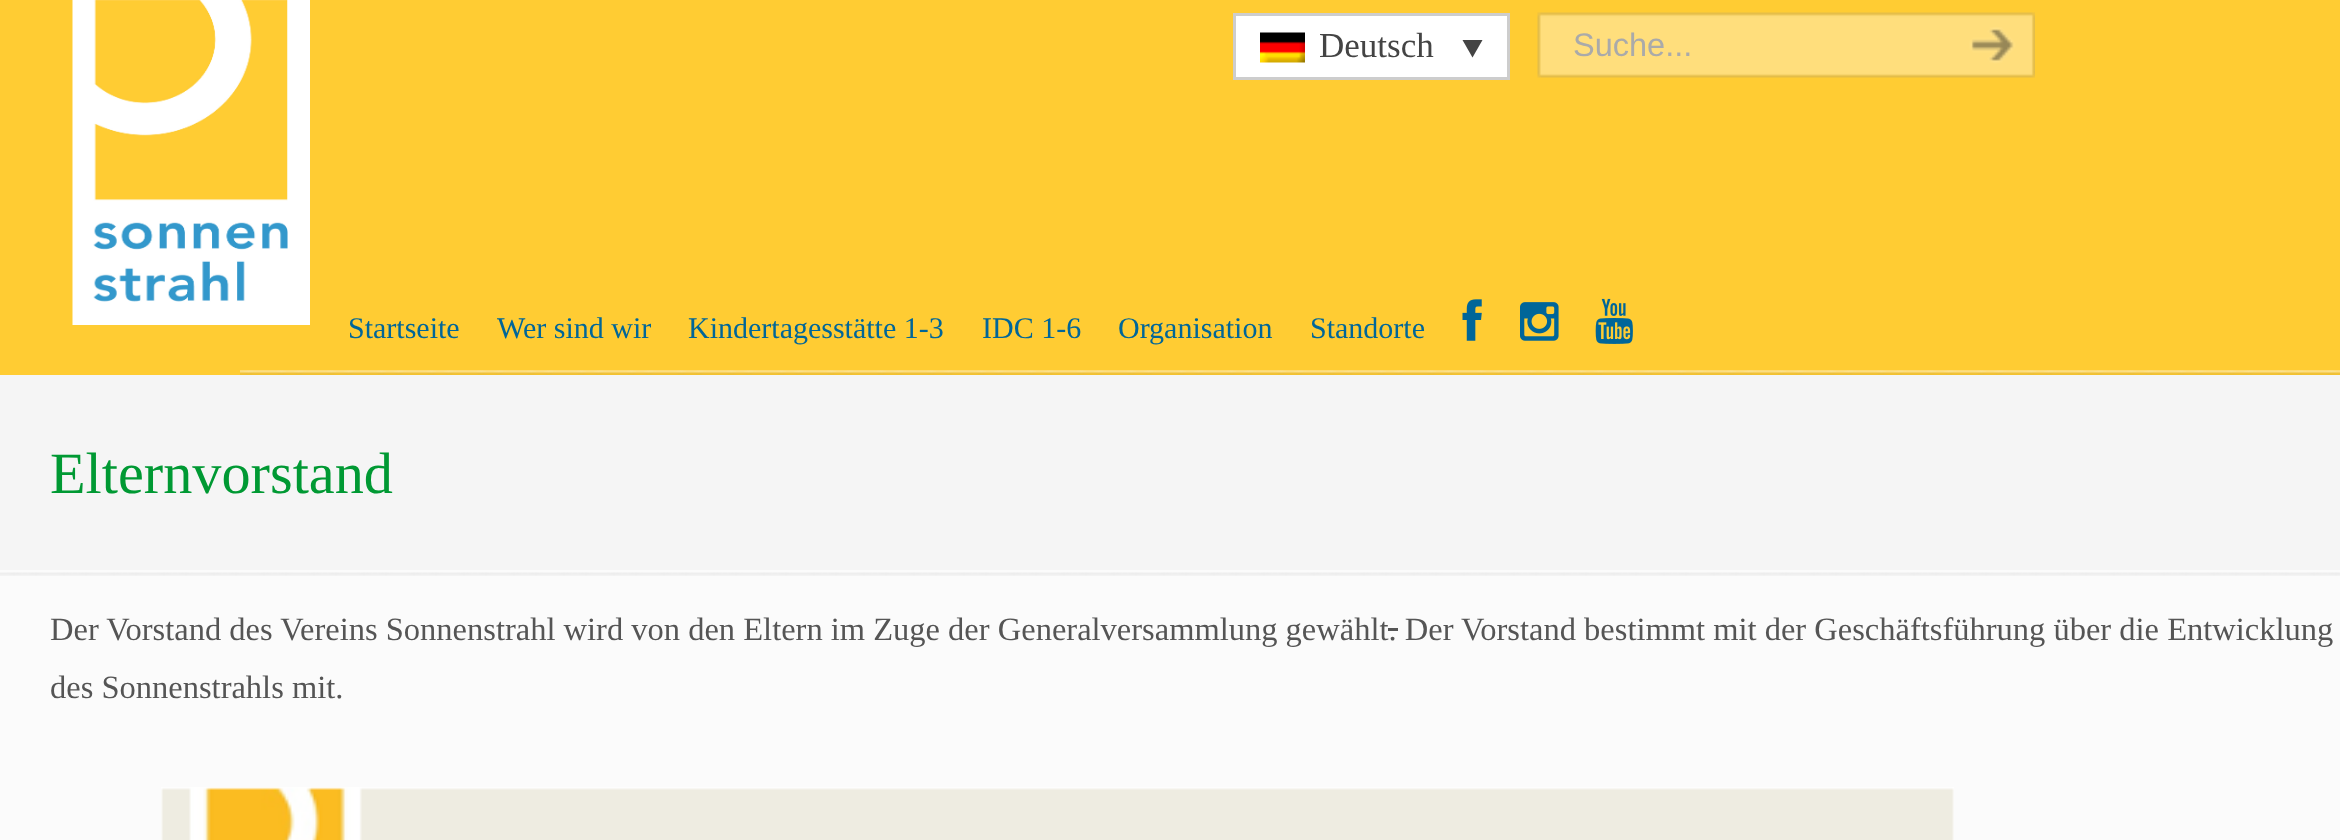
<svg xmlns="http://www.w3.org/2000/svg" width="2340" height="840">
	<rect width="100%" height="100%" fill="#FBFBFB" />
	<rect x="0" y="0" width="2340" height="375" fill="#FFCC33" />
	<image x="72" y="0" width="238" height="325" href="assets/img1.png" />
	<rect x="1234.5" y="14.5" width="274" height="64" fill="#FFFFFF" stroke="#CDCDCD" stroke-width="3" />
	<image x="1260" y="32" width="45" height="31" href="assets/img2.png" />
	<text x="1319" y="57" font-family="Liberation Serif" font-size="35" fill="#444444">Deutsch</text>
	<path d="M1462.5 40H1482.5L1472.5 57.5Z" fill="#444444" />
	<image x="1537" y="12" width="398" height="66" href="assets/img3.png" />
	<text x="1573" y="56" font-family="Liberation Sans" font-size="32.5" fill="#AAAAAA">Suche...</text>
	<image x="1935" y="12" width="100" height="66" href="assets/img4.png" />
	<g font-family="Liberation Serif" font-size="30" fill="#006699">
		<text x="348" y="338">Startseite</text>
		<text x="497" y="338">Wer sind wir</text>
		<text x="688" y="338">Kindertagesstätte 1-3</text>
		<text x="982" y="338">IDC 1-6</text>
		<text x="1118" y="338">Organisation</text>
		<text x="1310" y="338">Standorte</text>
	</g>
	<image x="1462" y="299" width="20" height="42" href="assets/img5.png" />
	<image x="1520" y="302" width="39" height="39" href="assets/img6.png" />
	<image x="1595" y="298" width="38" height="46" href="assets/img7.png" />
	<image x="240" y="370" width="2100" height="5" href="assets/img8.png" />
	<rect x="0" y="375" width="2340" height="195" fill="#F5F5F5" />
	<text x="50" y="493" font-family="Liberation Serif" font-size="58.25" fill="#009933">Elternvorstand</text>
	<image x="0" y="572" width="2340" height="4" href="assets/img9.png" />
	<text x="50" y="640" font-family="Liberation Serif" font-size="32.5" fill="#555555">Der Vorstand des Vereins Sonnenstrahl wird von den Eltern im Zuge der Generalversammlung gewählt. Der Vorstand bestimmt mit der Geschäftsführung über die Entwicklung</text>
	<rect x="1388" y="628" width="10" height="3" fill="#555555" />
	<text x="50" y="698" font-family="Liberation Serif" font-size="32.5" fill="#555555">des Sonnenstrahls mit.</text>
	<image x="161" y="787" width="1793" height="53" href="assets/img10.png" />
</svg>
